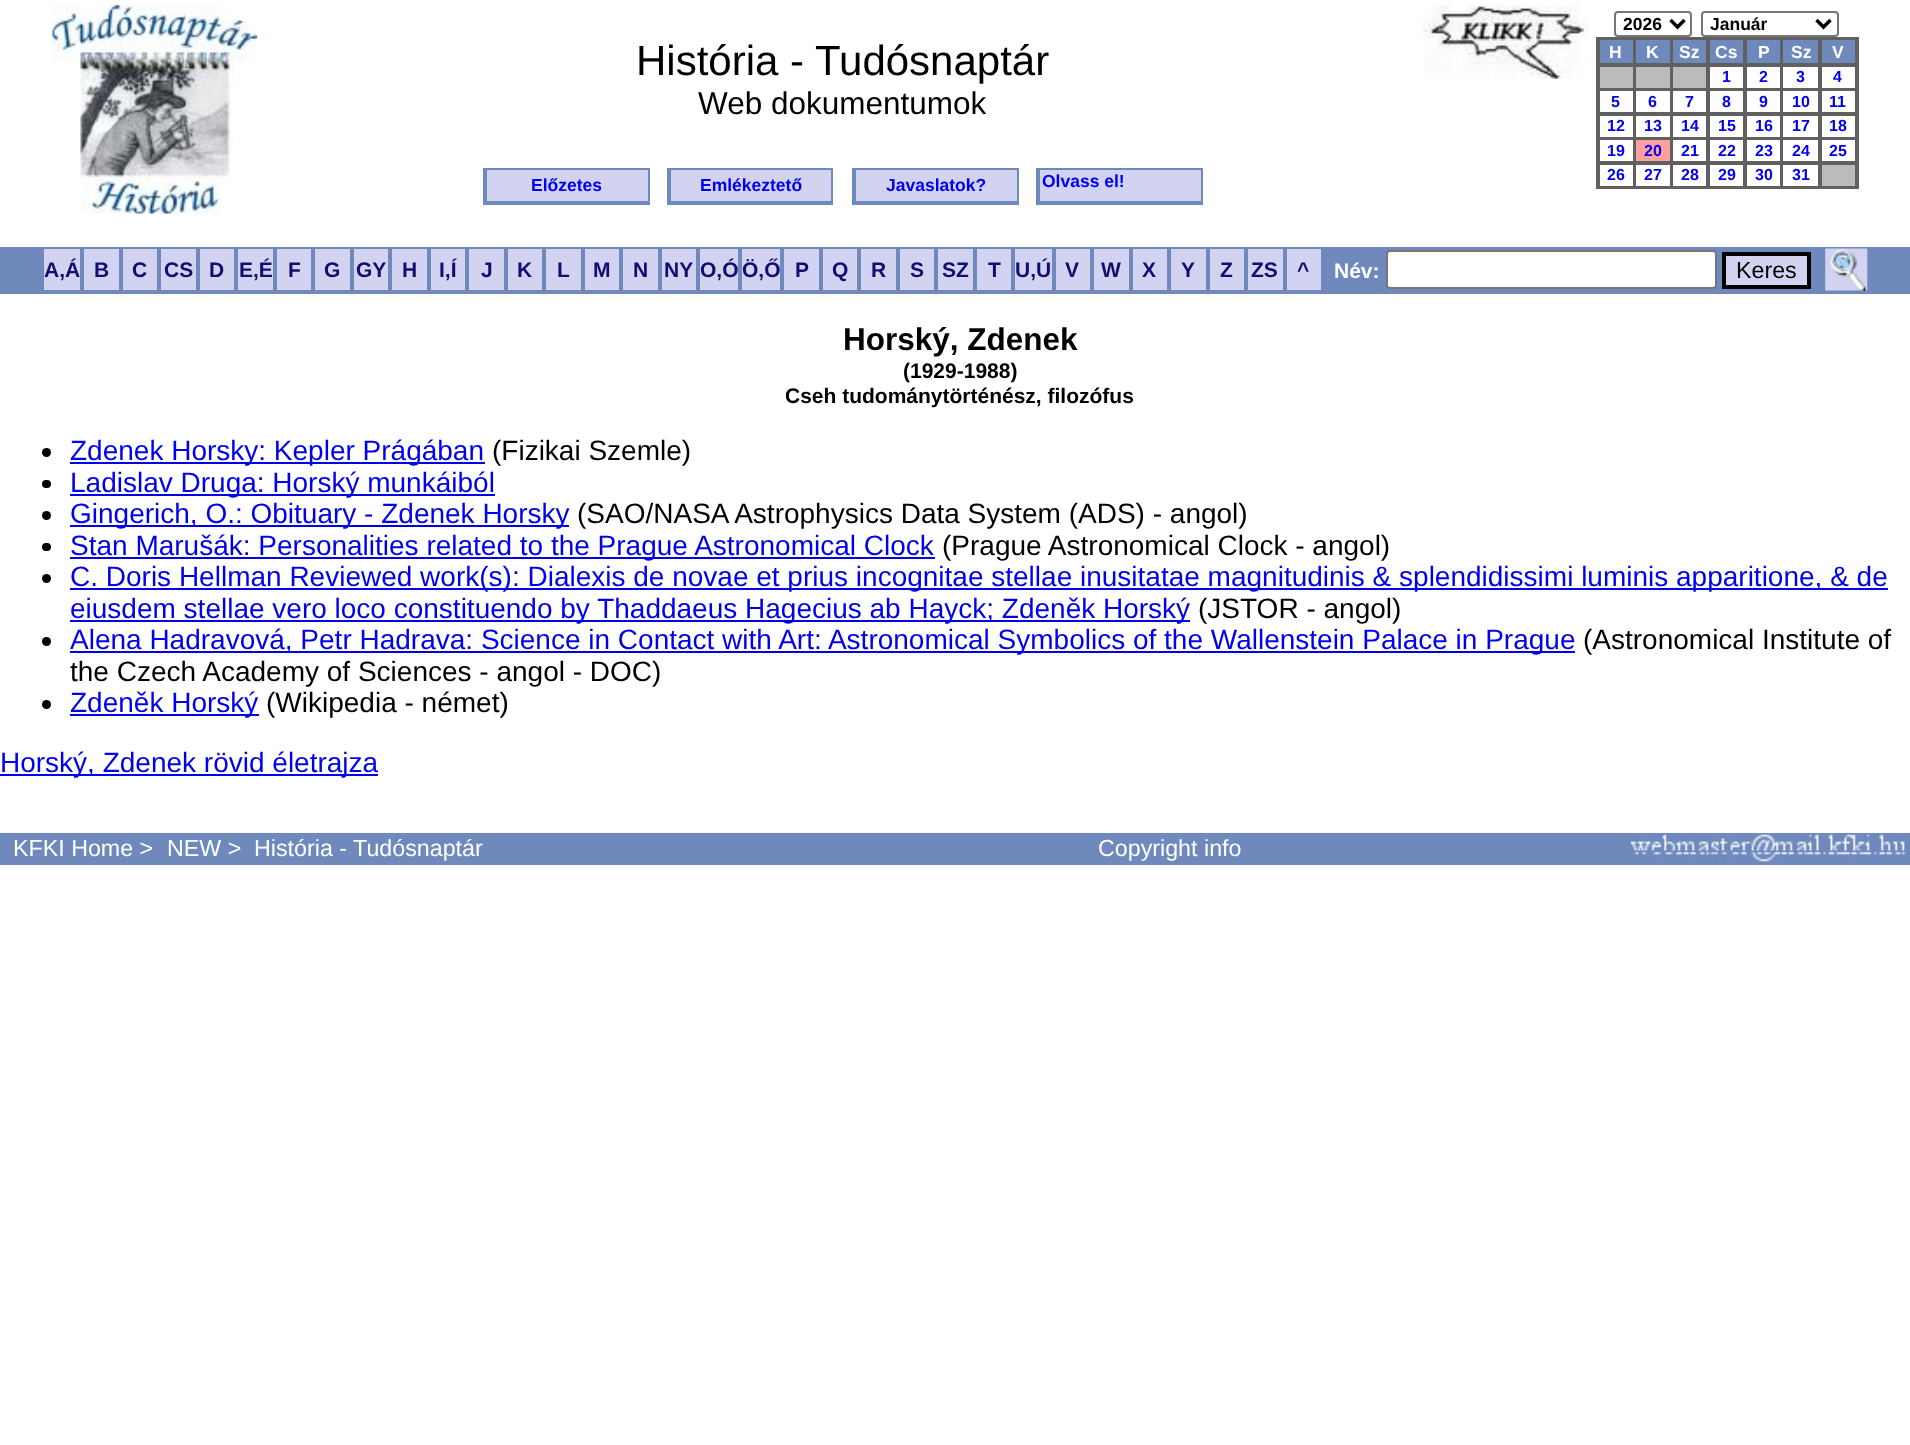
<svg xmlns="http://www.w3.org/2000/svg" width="1910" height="1445">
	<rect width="100%" height="100%" fill="#FFFFFF" />
	<image x="52" y="5" width="206" height="209" href="assets/img1.png" />
	<text x="636" y="75" font-family="Liberation Sans" font-size="42" fill="#000000">História - Tudósnaptár</text>
	<text x="698" y="114" font-family="Liberation Sans" font-size="31.5" fill="#000000">Web dokumentumok</text>
	<image x="1423" y="5" width="166" height="74" href="assets/img2.png" />
	<rect x="1615" y="12" width="76" height="24" rx="3" fill="none" stroke="#767676" stroke-width="2" />
	<path d="M1670.5 20L1677.5 27L1684.5 20" fill="none" stroke="#000000" stroke-width="3.5" />
	<text x="1623" y="30" font-family="Liberation Sans" font-size="17.5" font-weight="700" fill="#000000">2026</text>
	<rect x="1702" y="12" width="136" height="24" rx="3" fill="none" stroke="#767676" stroke-width="2" />
	<path d="M1816.5 20L1823.5 27L1830.5 20" fill="none" stroke="#000000" stroke-width="3.5" />
	<text x="1710" y="30" font-family="Liberation Sans" font-size="17.5" font-weight="700" fill="#000000">Január</text>
	<rect x="1596" y="37" width="263" height="152" fill="#606060" />
	<rect x="1600" y="40" width="33" height="23" fill="#6F89BD" />
	<text x="1609" y="58" font-family="Liberation Sans" font-size="17.5" font-weight="700" fill="#FFFFFF">H</text>
	<rect x="1636" y="40" width="34" height="23" fill="#6F89BD" />
	<text x="1646" y="58" font-family="Liberation Sans" font-size="17.5" font-weight="700" fill="#FFFFFF">K</text>
	<rect x="1673" y="40" width="33" height="23" fill="#6F89BD" />
	<text x="1679" y="58" font-family="Liberation Sans" font-size="17.5" font-weight="700" fill="#FFFFFF">Sz</text>
	<rect x="1710" y="40" width="33" height="23" fill="#6F89BD" />
	<text x="1715" y="58" font-family="Liberation Sans" font-size="17.5" font-weight="700" fill="#FFFFFF">Cs</text>
	<rect x="1747" y="40" width="33" height="23" fill="#6F89BD" />
	<text x="1758" y="58" font-family="Liberation Sans" font-size="17.5" font-weight="700" fill="#FFFFFF">P</text>
	<rect x="1783" y="40" width="35" height="23" fill="#6F89BD" />
	<text x="1791" y="58" font-family="Liberation Sans" font-size="17.5" font-weight="700" fill="#FFFFFF">Sz</text>
	<rect x="1822" y="40" width="33" height="23" fill="#6F89BD" />
	<text x="1832" y="58" font-family="Liberation Sans" font-size="17.5" font-weight="700" fill="#FFFFFF">V</text>
	<rect x="1600" y="67" width="33" height="21" fill="#BBBBBB" />
	<rect x="1636" y="67" width="34" height="21" fill="#BBBBBB" />
	<rect x="1673" y="67" width="33" height="21" fill="#BBBBBB" />
	<rect x="1710" y="67" width="33" height="21" fill="#FFFFFF" />
	<text x="1722" y="82" font-family="Liberation Sans" font-size="16" font-weight="700" fill="#0000EE">1</text>
	<rect x="1747" y="67" width="33" height="21" fill="#FFFFFF" />
	<text x="1759" y="82" font-family="Liberation Sans" font-size="16" font-weight="700" fill="#0000EE">2</text>
	<rect x="1783" y="67" width="35" height="21" fill="#FFFFFF" />
	<text x="1796" y="82" font-family="Liberation Sans" font-size="16" font-weight="700" fill="#0000EE">3</text>
	<rect x="1822" y="67" width="33" height="21" fill="#FFFFFF" />
	<text x="1833" y="82" font-family="Liberation Sans" font-size="16" font-weight="700" fill="#0000EE">4</text>
	<rect x="1600" y="91" width="33" height="21" fill="#FFFFFF" />
	<text x="1611" y="107" font-family="Liberation Sans" font-size="16" font-weight="700" fill="#0000EE">5</text>
	<rect x="1636" y="91" width="34" height="21" fill="#FFFFFF" />
	<text x="1648" y="107" font-family="Liberation Sans" font-size="16" font-weight="700" fill="#0000EE">6</text>
	<rect x="1673" y="91" width="33" height="21" fill="#FFFFFF" />
	<text x="1685" y="107" font-family="Liberation Sans" font-size="16" font-weight="700" fill="#0000EE">7</text>
	<rect x="1710" y="91" width="33" height="21" fill="#FFFFFF" />
	<text x="1722" y="107" font-family="Liberation Sans" font-size="16" font-weight="700" fill="#0000EE">8</text>
	<rect x="1747" y="91" width="33" height="21" fill="#FFFFFF" />
	<text x="1759" y="107" font-family="Liberation Sans" font-size="16" font-weight="700" fill="#0000EE">9</text>
	<rect x="1783" y="91" width="35" height="21" fill="#FFFFFF" />
	<text x="1792" y="107" font-family="Liberation Sans" font-size="16" font-weight="700" fill="#0000EE">10</text>
	<rect x="1822" y="91" width="33" height="21" fill="#FFFFFF" />
	<text x="1829" y="107" font-family="Liberation Sans" font-size="16" font-weight="700" fill="#0000EE">11</text>
	<rect x="1600" y="116" width="33" height="21" fill="#FFFFFF" />
	<text x="1607" y="131" font-family="Liberation Sans" font-size="16" font-weight="700" fill="#0000EE">12</text>
	<rect x="1636" y="116" width="34" height="21" fill="#FFFFFF" />
	<text x="1644" y="131" font-family="Liberation Sans" font-size="16" font-weight="700" fill="#0000EE">13</text>
	<rect x="1673" y="116" width="33" height="21" fill="#FFFFFF" />
	<text x="1681" y="131" font-family="Liberation Sans" font-size="16" font-weight="700" fill="#0000EE">14</text>
	<rect x="1710" y="116" width="33" height="21" fill="#FFFFFF" />
	<text x="1718" y="131" font-family="Liberation Sans" font-size="16" font-weight="700" fill="#0000EE">15</text>
	<rect x="1747" y="116" width="33" height="21" fill="#FFFFFF" />
	<text x="1755" y="131" font-family="Liberation Sans" font-size="16" font-weight="700" fill="#0000EE">16</text>
	<rect x="1783" y="116" width="35" height="21" fill="#FFFFFF" />
	<text x="1792" y="131" font-family="Liberation Sans" font-size="16" font-weight="700" fill="#0000EE">17</text>
	<rect x="1822" y="116" width="33" height="21" fill="#FFFFFF" />
	<text x="1829" y="131" font-family="Liberation Sans" font-size="16" font-weight="700" fill="#0000EE">18</text>
	<rect x="1600" y="140" width="33" height="21" fill="#FFFFFF" />
	<text x="1607" y="156" font-family="Liberation Sans" font-size="16" font-weight="700" fill="#0000EE">19</text>
	<rect x="1636" y="140" width="34" height="21" fill="#FFA0A0" />
	<text x="1644" y="156" font-family="Liberation Sans" font-size="16" font-weight="700" fill="#0000EE">20</text>
	<rect x="1673" y="140" width="33" height="21" fill="#FFFFFF" />
	<text x="1681" y="156" font-family="Liberation Sans" font-size="16" font-weight="700" fill="#0000EE">21</text>
	<rect x="1710" y="140" width="33" height="21" fill="#FFFFFF" />
	<text x="1718" y="156" font-family="Liberation Sans" font-size="16" font-weight="700" fill="#0000EE">22</text>
	<rect x="1747" y="140" width="33" height="21" fill="#FFFFFF" />
	<text x="1755" y="156" font-family="Liberation Sans" font-size="16" font-weight="700" fill="#0000EE">23</text>
	<rect x="1783" y="140" width="35" height="21" fill="#FFFFFF" />
	<text x="1792" y="156" font-family="Liberation Sans" font-size="16" font-weight="700" fill="#0000EE">24</text>
	<rect x="1822" y="140" width="33" height="21" fill="#FFFFFF" />
	<text x="1829" y="156" font-family="Liberation Sans" font-size="16" font-weight="700" fill="#0000EE">25</text>
	<rect x="1600" y="165" width="33" height="21" fill="#FFFFFF" />
	<text x="1607" y="180" font-family="Liberation Sans" font-size="16" font-weight="700" fill="#0000EE">26</text>
	<rect x="1636" y="165" width="34" height="21" fill="#FFFFFF" />
	<text x="1644" y="180" font-family="Liberation Sans" font-size="16" font-weight="700" fill="#0000EE">27</text>
	<rect x="1673" y="165" width="33" height="21" fill="#FFFFFF" />
	<text x="1681" y="180" font-family="Liberation Sans" font-size="16" font-weight="700" fill="#0000EE">28</text>
	<rect x="1710" y="165" width="33" height="21" fill="#FFFFFF" />
	<text x="1718" y="180" font-family="Liberation Sans" font-size="16" font-weight="700" fill="#0000EE">29</text>
	<rect x="1747" y="165" width="33" height="21" fill="#FFFFFF" />
	<text x="1755" y="180" font-family="Liberation Sans" font-size="16" font-weight="700" fill="#0000EE">30</text>
	<rect x="1783" y="165" width="35" height="21" fill="#FFFFFF" />
	<text x="1792" y="180" font-family="Liberation Sans" font-size="16" font-weight="700" fill="#0000EE">31</text>
	<rect x="1822" y="165" width="33" height="21" fill="#BBBBBB" />
	<rect x="487" y="170" width="161" height="31" fill="#D2D2F1" />
	<rect x="483" y="168" width="166" height="2" fill="#6F89BD" />
	<rect x="648" y="168" width="2" height="37" fill="#6F89BD" />
	<rect x="483" y="201" width="166" height="4" fill="#6F89BD" />
	<rect x="483" y="168" width="4" height="37" fill="#6F89BD" />
	<text x="531" y="191" font-family="Liberation Sans" font-size="17.5" font-weight="700" fill="#0000EE">Előzetes</text>
	<rect x="671" y="170" width="160" height="31" fill="#D2D2F1" />
	<rect x="667" y="168" width="166" height="2" fill="#6F89BD" />
	<rect x="831" y="168" width="2" height="37" fill="#6F89BD" />
	<rect x="667" y="201" width="166" height="4" fill="#6F89BD" />
	<rect x="667" y="168" width="4" height="37" fill="#6F89BD" />
	<text x="700" y="191" font-family="Liberation Sans" font-size="17.5" font-weight="700" fill="#0000EE">Emlékeztető</text>
	<rect x="856" y="170" width="161" height="31" fill="#D2D2F1" />
	<rect x="852" y="168" width="167" height="2" fill="#6F89BD" />
	<rect x="1017" y="168" width="2" height="37" fill="#6F89BD" />
	<rect x="852" y="201" width="167" height="4" fill="#6F89BD" />
	<rect x="852" y="168" width="4" height="37" fill="#6F89BD" />
	<text x="886" y="191" font-family="Liberation Sans" font-size="17.5" font-weight="700" fill="#0000EE">Javaslatok?</text>
	<rect x="1040" y="170" width="161" height="31" fill="#D2D2F1" />
	<rect x="1036" y="168" width="166" height="2" fill="#6F89BD" />
	<rect x="1201" y="168" width="2" height="37" fill="#6F89BD" />
	<rect x="1036" y="201" width="166" height="4" fill="#6F89BD" />
	<rect x="1036" y="168" width="4" height="37" fill="#6F89BD" />
	<text x="1042" y="187" font-family="Liberation Sans" font-size="17.5" font-weight="700" fill="#0000EE">Olvass el!</text>
	<rect x="0" y="247" width="1910" height="47" fill="#6F89BD" />
	<rect x="44" y="249" width="36" height="41" fill="#D2D2F1" />
	<text x="44" y="277" font-family="Liberation Sans" font-size="21" font-weight="700" fill="#100E71">A,Á</text>
	<rect x="84" y="249" width="35" height="41" fill="#D2D2F1" />
	<text x="94" y="277" font-family="Liberation Sans" font-size="21" font-weight="700" fill="#100E71">B</text>
	<rect x="123" y="249" width="34" height="41" fill="#D2D2F1" />
	<text x="132" y="277" font-family="Liberation Sans" font-size="21" font-weight="700" fill="#100E71">C</text>
	<rect x="161" y="249" width="35" height="41" fill="#D2D2F1" />
	<text x="164" y="277" font-family="Liberation Sans" font-size="21" font-weight="700" fill="#100E71">CS</text>
	<rect x="200" y="249" width="34" height="41" fill="#D2D2F1" />
	<text x="209" y="277" font-family="Liberation Sans" font-size="21" font-weight="700" fill="#100E71">D</text>
	<rect x="238" y="249" width="35" height="41" fill="#D2D2F1" />
	<text x="239" y="277" font-family="Liberation Sans" font-size="21" font-weight="700" fill="#100E71">E,É</text>
	<rect x="277" y="249" width="34" height="41" fill="#D2D2F1" />
	<text x="288" y="277" font-family="Liberation Sans" font-size="21" font-weight="700" fill="#100E71">F</text>
	<rect x="315" y="249" width="35" height="41" fill="#D2D2F1" />
	<text x="324" y="277" font-family="Liberation Sans" font-size="21" font-weight="700" fill="#100E71">G</text>
	<rect x="354" y="249" width="34" height="41" fill="#D2D2F1" />
	<text x="356" y="277" font-family="Liberation Sans" font-size="21" font-weight="700" fill="#100E71">GY</text>
	<rect x="392" y="249" width="35" height="41" fill="#D2D2F1" />
	<text x="402" y="277" font-family="Liberation Sans" font-size="21" font-weight="700" fill="#100E71">H</text>
	<rect x="431" y="249" width="34" height="41" fill="#D2D2F1" />
	<text x="439" y="277" font-family="Liberation Sans" font-size="21" font-weight="700" fill="#100E71">I,Í</text>
	<rect x="469" y="249" width="35" height="41" fill="#D2D2F1" />
	<text x="481" y="277" font-family="Liberation Sans" font-size="21" font-weight="700" fill="#100E71">J</text>
	<rect x="508" y="249" width="34" height="41" fill="#D2D2F1" />
	<text x="517" y="277" font-family="Liberation Sans" font-size="21" font-weight="700" fill="#100E71">K</text>
	<rect x="546" y="249" width="35" height="41" fill="#D2D2F1" />
	<text x="557" y="277" font-family="Liberation Sans" font-size="21" font-weight="700" fill="#100E71">L</text>
	<rect x="585" y="249" width="34" height="41" fill="#D2D2F1" />
	<text x="593" y="277" font-family="Liberation Sans" font-size="21" font-weight="700" fill="#100E71">M</text>
	<rect x="623" y="249" width="35" height="41" fill="#D2D2F1" />
	<text x="633" y="277" font-family="Liberation Sans" font-size="21" font-weight="700" fill="#100E71">N</text>
	<rect x="662" y="249" width="34" height="41" fill="#D2D2F1" />
	<text x="664" y="277" font-family="Liberation Sans" font-size="21" font-weight="700" fill="#100E71">NY</text>
	<rect x="700" y="249" width="38" height="41" fill="#D2D2F1" />
	<text x="700" y="277" font-family="Liberation Sans" font-size="21" font-weight="700" fill="#100E71">O,Ó</text>
	<rect x="742" y="249" width="38" height="41" fill="#D2D2F1" />
	<text x="742" y="277" font-family="Liberation Sans" font-size="21" font-weight="700" fill="#100E71">Ö,Ő</text>
	<rect x="784" y="249" width="35" height="41" fill="#D2D2F1" />
	<text x="795" y="277" font-family="Liberation Sans" font-size="21" font-weight="700" fill="#100E71">P</text>
	<rect x="823" y="249" width="34" height="41" fill="#D2D2F1" />
	<text x="832" y="277" font-family="Liberation Sans" font-size="21" font-weight="700" fill="#100E71">Q</text>
	<rect x="861" y="249" width="35" height="41" fill="#D2D2F1" />
	<text x="871" y="277" font-family="Liberation Sans" font-size="21" font-weight="700" fill="#100E71">R</text>
	<rect x="900" y="249" width="34" height="41" fill="#D2D2F1" />
	<text x="910" y="277" font-family="Liberation Sans" font-size="21" font-weight="700" fill="#100E71">S</text>
	<rect x="938" y="249" width="35" height="41" fill="#D2D2F1" />
	<text x="942" y="277" font-family="Liberation Sans" font-size="21" font-weight="700" fill="#100E71">SZ</text>
	<rect x="977" y="249" width="34" height="41" fill="#D2D2F1" />
	<text x="988" y="277" font-family="Liberation Sans" font-size="21" font-weight="700" fill="#100E71">T</text>
	<rect x="1015" y="249" width="37" height="41" fill="#D2D2F1" />
	<text x="1015" y="277" font-family="Liberation Sans" font-size="21" font-weight="700" fill="#100E71">U,Ú</text>
	<rect x="1056" y="249" width="34" height="41" fill="#D2D2F1" />
	<text x="1065" y="277" font-family="Liberation Sans" font-size="21" font-weight="700" fill="#100E71">V</text>
	<rect x="1094" y="249" width="35" height="41" fill="#D2D2F1" />
	<text x="1101" y="277" font-family="Liberation Sans" font-size="21" font-weight="700" fill="#100E71">W</text>
	<rect x="1133" y="249" width="34" height="41" fill="#D2D2F1" />
	<text x="1142" y="277" font-family="Liberation Sans" font-size="21" font-weight="700" fill="#100E71">X</text>
	<rect x="1171" y="249" width="35" height="41" fill="#D2D2F1" />
	<text x="1181" y="277" font-family="Liberation Sans" font-size="21" font-weight="700" fill="#100E71">Y</text>
	<rect x="1210" y="249" width="34" height="41" fill="#D2D2F1" />
	<text x="1220" y="277" font-family="Liberation Sans" font-size="21" font-weight="700" fill="#100E71">Z</text>
	<rect x="1248" y="249" width="35" height="41" fill="#D2D2F1" />
	<text x="1251" y="277" font-family="Liberation Sans" font-size="21" font-weight="700" fill="#100E71">ZS</text>
	<rect x="1287" y="249" width="34" height="41" fill="#D2D2F1" />
	<text x="1297" y="277" font-family="Liberation Sans" font-size="21" font-weight="700" fill="#100E71">^</text>
	<text x="1334" y="278" font-family="Liberation Sans" font-size="21" font-weight="700" fill="#FFFFFF">Név:</text>
	<rect x="1387" y="251" width="329" height="37" rx="3" fill="#FFFFFF" stroke="#767676" stroke-width="2" />
	<rect x="1724" y="254" width="85" height="33" fill="#D2D2F1" stroke="#000000" stroke-width="4" />
	<text x="1736" y="278" font-family="Liberation Sans" font-size="23.25" fill="#000000">Keres</text>
	<image x="1825" y="248" width="43" height="43" href="assets/img3.png" />
	<text x="843" y="350" font-family="Liberation Sans" font-size="31.5" font-weight="700" fill="#000000">Horský, Zdenek</text>
	<g font-family="Liberation Sans" font-size="21" font-weight="700" fill="#000000">
		<text x="903" y="378">(1929-1988)</text>
		<text x="785" y="403">Cseh tudománytörténész, filozófus</text>
	</g>
	<circle cx="46.5" cy="452.5" r="4.5" fill="#000000" />
	<rect x="70" y="462" width="415" height="2" fill="#0000EE" />
	<text x="70" y="460" font-family="Liberation Sans" font-size="28" fill="#0000EE">Zdenek Horsky: Kepler Prágában</text>
	<text x="492" y="460" font-family="Liberation Sans" font-size="28" fill="#000000">(Fizikai Szemle)</text>
	<rect x="42" y="480" width="9" height="8" rx="4" fill="#000000" />
	<rect x="70" y="494" width="425" height="2" fill="#0000EE" />
	<text x="70" y="492" font-family="Liberation Sans" font-size="28" fill="#0000EE">Ladislav Druga: Horský munkáiból</text>
	<circle cx="46.5" cy="515.5" r="4.5" fill="#000000" />
	<rect x="70" y="525" width="499" height="2" fill="#0000EE" />
	<text x="70" y="523" font-family="Liberation Sans" font-size="28" fill="#0000EE">Gingerich, O.: Obituary - Zdenek Horsky</text>
	<text x="577" y="523" font-family="Liberation Sans" font-size="28" fill="#000000">(SAO/NASA Astrophysics Data System (ADS) - angol)</text>
	<rect x="42" y="543" width="9" height="8" rx="4" fill="#000000" />
	<rect x="70" y="557" width="865" height="2" fill="#0000EE" />
	<text x="70" y="555" font-family="Liberation Sans" font-size="28" fill="#0000EE">Stan Marušák: Personalities related to the Prague Astronomical Clock</text>
	<text x="942" y="555" font-family="Liberation Sans" font-size="28" fill="#000000">(Prague Astronomical Clock - angol)</text>
	<circle cx="46.5" cy="578.5" r="4.5" fill="#000000" />
	<rect x="70" y="588" width="1818" height="2" fill="#0000EE" />
	<text x="70" y="586" font-family="Liberation Sans" font-size="28" fill="#0000EE">C. Doris Hellman Reviewed work(s): Dialexis de novae et prius incognitae stellae inusitatae magnitudinis &amp; splendidissimi luminis apparitione, &amp; de</text>
	<rect x="70" y="620" width="1120" height="2" fill="#0000EE" />
	<text x="70" y="618" font-family="Liberation Sans" font-size="28" fill="#0000EE">eiusdem stellae vero loco constituendo by Thaddaeus Hagecius ab Hayck; Zdeněk Horský</text>
	<text x="1198" y="618" font-family="Liberation Sans" font-size="28" fill="#000000">(JSTOR - angol)</text>
	<circle cx="46.5" cy="641.5" r="4.5" fill="#000000" />
	<rect x="70" y="651" width="1505" height="2" fill="#0000EE" />
	<text x="70" y="649" font-family="Liberation Sans" font-size="28" fill="#0000EE">Alena Hadravová, Petr Hadrava: Science in Contact with Art: Astronomical Symbolics of the Wallenstein Palace in Prague</text>
	<g font-family="Liberation Sans" font-size="28" fill="#000000">
		<text x="1583" y="649">(Astronomical Institute of</text>
		<text x="70" y="681">the Czech Academy of Sciences - angol - DOC)</text>
	</g>
	<circle cx="46.5" cy="704.5" r="4.5" fill="#000000" />
	<rect x="70" y="714" width="189" height="2" fill="#0000EE" />
	<text x="70" y="712" font-family="Liberation Sans" font-size="28" fill="#0000EE">Zdeněk Horský</text>
	<text x="266" y="712" font-family="Liberation Sans" font-size="28" fill="#000000">(Wikipedia - német)</text>
	<rect x="0" y="774" width="378" height="2" fill="#0000EE" />
	<text x="0" y="772" font-family="Liberation Sans" font-size="28" fill="#0000EE">Horský, Zdenek rövid életrajza</text>
	<rect x="0" y="833" width="1910" height="32" fill="#6F89BD" />
	<g font-family="Liberation Sans" font-size="23.25" fill="#FFFFFF">
		<text x="13" y="856">KFKI Home &gt;</text>
		<text x="167" y="856">NEW &gt;</text>
		<text x="254" y="856">História - Tudósnaptár</text>
		<text x="1098" y="856">Copyright info</text>
	</g>
	<image x="1631" y="834" width="275" height="28" href="assets/img4.png" />
</svg>
